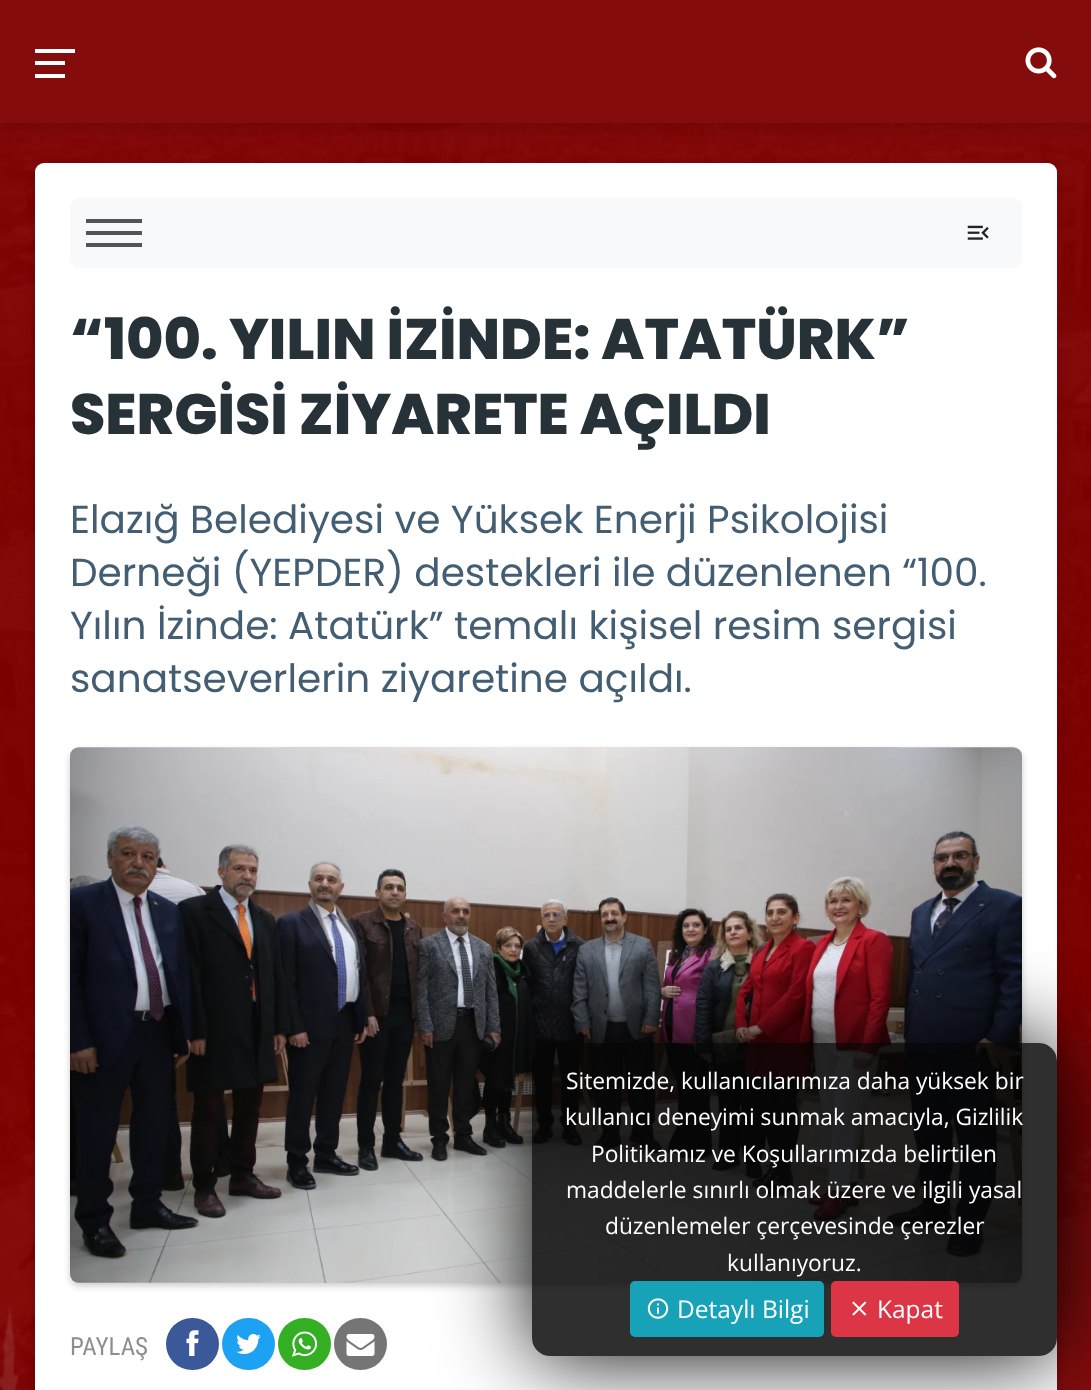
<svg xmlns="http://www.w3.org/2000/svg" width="1091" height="1390">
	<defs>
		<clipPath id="clip1"><path d="M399 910H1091V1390H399ZM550 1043H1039C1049 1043 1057 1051 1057 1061V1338C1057 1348 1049 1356 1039 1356H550C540 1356 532 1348 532 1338V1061C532 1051 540 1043 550 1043Z" clip-rule="evenodd" /></clipPath>
	</defs>
	<rect width="100%" height="100%" fill="#FFFFFF" />
	<image x="0" y="123" width="1091" height="1267" href="assets/img1.png" />
	<rect x="-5" y="-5" width="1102" height="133" fill="#000000" fill-opacity="0.1" filter="blur(4.5px)" />
	<rect x="0" y="0" width="1091" height="123" fill="#840C0D" />
	<rect x="35" y="61" width="30" height="4" fill="#FFFFFF" />
	<rect x="35" y="49" width="40" height="4" fill="#FFFFFF" />
	<rect x="35" y="74" width="30" height="4" fill="#FFFFFF" />
	<image x="1025" y="47" width="32" height="32" href="assets/img2.png" />
	<rect x="35" y="166" width="1022" height="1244" rx="9" fill="#000000" fill-opacity="0.2" filter="blur(3.5px)" />
	<rect x="35" y="163" width="1022" height="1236" rx="9" fill="#FFFFFF" />
	<rect x="70" y="198" width="952" height="70" rx="9" fill="#F8F9FA" />
	<rect x="86" y="219" width="56" height="4" fill="#555555" />
	<rect x="86" y="231" width="56" height="4" fill="#555555" />
	<rect x="86" y="243" width="56" height="4" fill="#555555" />
	<image x="967" y="225" width="22" height="15" href="assets/img3.png" />
	<g font-family="Poppins" font-size="57" font-weight="800" fill="#263238">
		<text x="70" y="359">“100. YILIN İZİNDE: ATATÜRK”</text>
		<text x="70" y="434">SERGİSİ ZİYARETE AÇILDI</text>
	</g>
	<g font-family="Poppins" font-size="39" fill="#435D73">
		<text x="70" y="533">Elazığ Belediyesi ve Yüksek Enerji Psikolojisi</text>
		<text x="70" y="586">Derneği (YEPDER) destekleri ile düzenlenen “100.</text>
		<text x="70" y="639">Yılın İzinde: Atatürk” temalı kişisel resim sergisi</text>
		<text x="70" y="692">sanatseverlerin ziyaretine açıldı.</text>
	</g>
	<rect x="70" y="751" width="952" height="535" rx="9" fill="#000000" fill-opacity="0.2" filter="blur(3.5px)" />
	<image x="70" y="747" width="952" height="536" href="assets/img4.png" />
	<text x="70" y="1355" font-family="Roboto Condensed" font-size="25" fill="#8E8E8E">PAYLAŞ</text>
	<rect x="166" y="1318" width="53" height="52" rx="26" fill="#3B5998" />
	<image x="186" y="1330" width="13" height="26" href="assets/img5.png" />
	<rect x="222" y="1318" width="53" height="52" rx="26" fill="#1DA1F2" />
	<image x="236" y="1334" width="25" height="20" href="assets/img6.png" />
	<rect x="278" y="1318" width="53" height="52" rx="26" fill="#34AF23" />
	<image x="292" y="1331" width="26" height="26" href="assets/img7.png" />
	<rect x="334" y="1318" width="53" height="52" rx="26" fill="#757575" />
	<image x="346" y="1334" width="29" height="22" href="assets/img8.png" />
	<g clip-path="url(#clip1)">
		<rect x="532" y="1043" width="525" height="313" rx="18" fill="#000000" filter="blur(44px)" />
	</g>
	<rect x="532" y="1043" width="525" height="313" rx="18" fill="#050505" fill-opacity="0.83" />
	<g font-family="Open Sans" font-size="22.75" fill="#FFFFFF">
		<text x="566" y="1089">Sitemizde, kullanıcılarımıza daha yüksek bir</text>
		<text x="565" y="1125">kullanıcı deneyimi sunmak amacıyla, Gizlilik</text>
		<text x="591" y="1162">Politikamız ve Koşullarımızda belirtilen</text>
		<text x="566" y="1198">maddelerle sınırlı olmak üzere ve ilgili yasal</text>
		<text x="605" y="1234">düzenlemeler çerçevesinde çerezler</text>
		<text x="727" y="1271">kullanıyoruz.</text>
	</g>
	<rect x="631" y="1282" width="192" height="54" rx="4" fill="#17A2B8" stroke="#17A2B8" stroke-width="2" />
	<image x="647" y="1298" width="22" height="21" href="assets/img9.png" />
	<text x="677" y="1318" font-family="Open Sans" font-size="24.5" fill="#FFFFFF">Detaylı Bilgi</text>
	<rect x="832" y="1282" width="126" height="54" rx="4" fill="#DC3545" stroke="#DC3545" stroke-width="2" />
	<image x="852" y="1301" width="15" height="15" href="assets/img10.png" />
	<text x="877" y="1318" font-family="Open Sans" font-size="24.5" fill="#FFFFFF">Kapat</text>
</svg>
